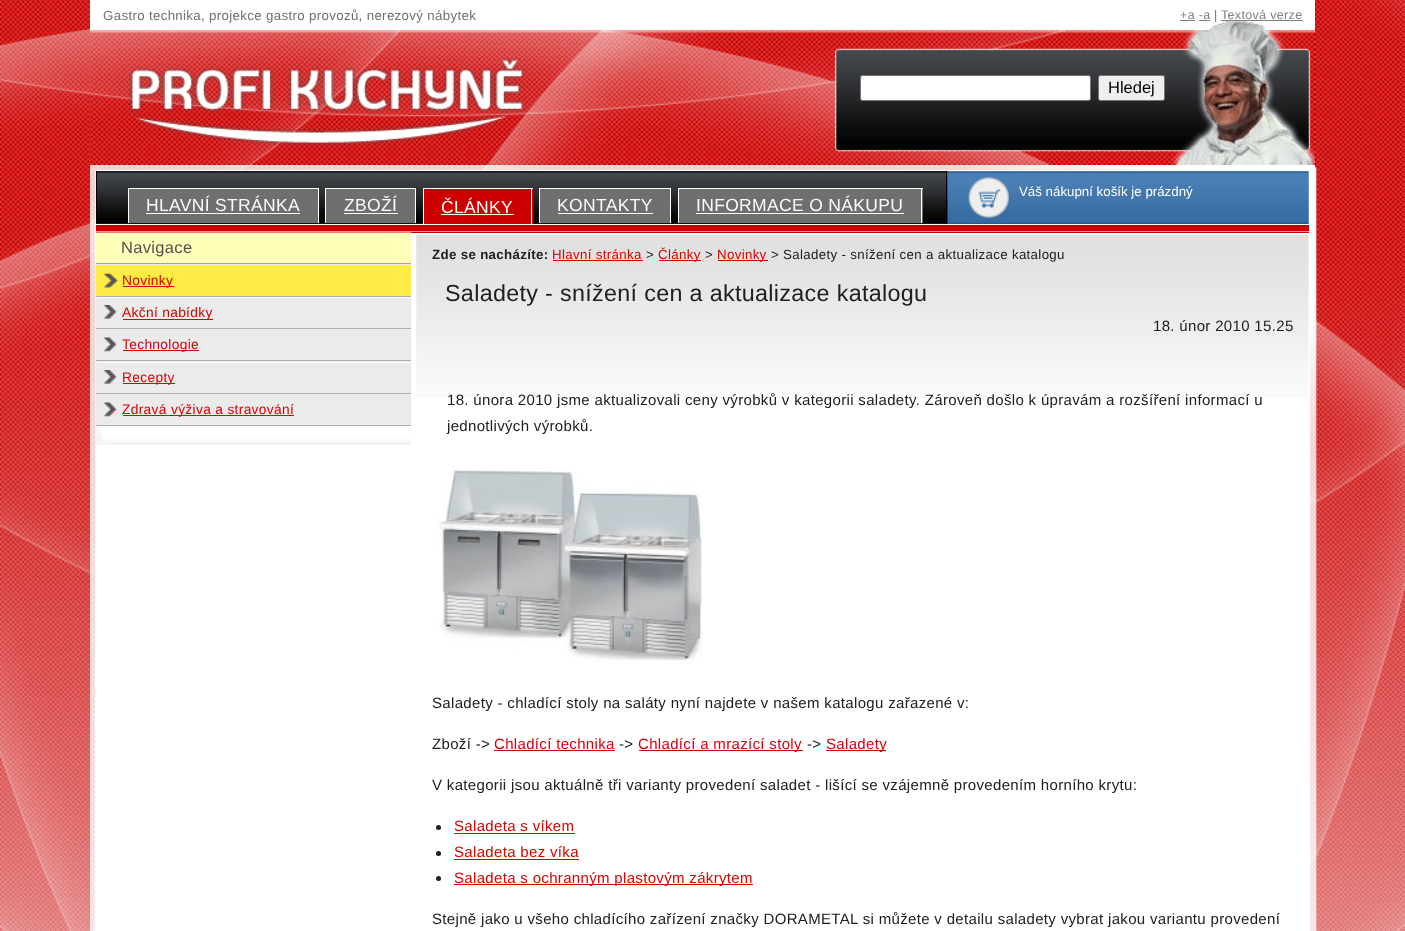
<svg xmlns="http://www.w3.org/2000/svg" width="1405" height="931">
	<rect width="100%" height="100%" fill="#FFFFFF" />
	<image x="0" y="0" width="1405" height="931" href="assets/img1.png" />
	<image x="90" y="0" width="1225" height="165" href="assets/img2.png" />
	<text x="103" y="20" font-family="Liberation Sans" font-size="13.3" letter-spacing="0.33" fill="#707070">Gastro technika, projekce gastro provozů, nerezový nábytek</text>
	<text x="1180" y="19" font-family="Liberation Sans" font-size="12.5" letter-spacing="0.33" fill="#808080">+a -a</text>
	<rect x="1180" y="20" width="15" height="1" fill="#808080" />
	<text x="1214" y="19" font-family="Liberation Sans" font-size="12.5" letter-spacing="0.33" fill="#707070">|</text>
	<text x="1221" y="19" font-family="Liberation Sans" font-size="12.5" letter-spacing="0.33" fill="#808080">Textová verze</text>
	<rect x="1221" y="20" width="82" height="1" fill="#808080" />
	<rect x="1199" y="20" width="11" height="1" fill="#808080" />
	<rect x="860.5" y="75.5" width="230" height="25" rx="2" fill="#FFFFFF" stroke="#767676" />
	<rect x="1098.5" y="75.5" width="66" height="25" rx="2" fill="#EFEFEF" stroke="#767676" />
	<text x="1108" y="93" font-family="Liberation Sans" font-size="16.5" fill="#000000">Hledej</text>
	<image x="90" y="165" width="1225" height="766" href="assets/img3.png" />
	<image x="97" y="171" width="1212" height="53" href="assets/img4.png" />
	<image x="968" y="177" width="41" height="41" href="assets/img5.png" />
	<text x="1019" y="196" font-family="Liberation Sans" font-size="13.3" fill="#FFFFFF">Váš nákupní košík je prázdný</text>
	<image x="97" y="171" width="851" height="53" href="assets/img6.png" />
	<rect x="946" y="171" width="1" height="53" fill="#000103" />
	<rect x="96" y="171" width="1" height="53" fill="#000103" />
	<rect x="129" y="189" width="189" height="34" fill="#6E706D" />
	<text x="146" y="211" font-family="Liberation Sans" font-size="17.5" letter-spacing="0.33" fill="#F9FBFA">HLAVNÍ STRÁNKA</text>
	<rect x="128" y="188" width="191" height="1" fill="#FEFFFF" />
	<rect x="318" y="188" width="1" height="35" fill="#FEFFFF" />
	<rect x="128" y="188" width="1" height="35" fill="#FEFFFF" />
	<rect x="146" y="213" width="154" height="1" fill="#F9FBFA" />
	<rect x="326" y="189" width="89" height="34" fill="#6E706D" />
	<text x="344" y="211" font-family="Liberation Sans" font-size="17.5" letter-spacing="0.33" fill="#F9FBFA">ZBOŽÍ</text>
	<rect x="325" y="188" width="91" height="1" fill="#FEFFFF" />
	<rect x="415" y="188" width="1" height="35" fill="#FEFFFF" />
	<rect x="325" y="188" width="1" height="35" fill="#FEFFFF" />
	<rect x="344" y="213" width="54" height="1" fill="#F9FBFA" />
	<rect x="424" y="189" width="109" height="35" fill="#CC0000" />
	<text x="441" y="213" font-family="Liberation Sans" font-size="17.5" letter-spacing="0.33" fill="#FFFFFF">ČLÁNKY</text>
	<rect x="423" y="188" width="110" height="1" fill="#FEFFFF" />
	<rect x="531" y="188" width="1" height="36" fill="#FEFFFF" />
	<rect x="423" y="188" width="1" height="36" fill="#FEFFFF" />
	<rect x="441" y="214" width="73" height="1" fill="#FFFFFF" />
	<rect x="540" y="189" width="130" height="34" fill="#6E706D" />
	<text x="557" y="211" font-family="Liberation Sans" font-size="17.5" letter-spacing="0.33" fill="#F9FBFA">KONTAKTY</text>
	<rect x="539" y="188" width="132" height="1" fill="#FEFFFF" />
	<rect x="670" y="188" width="1" height="35" fill="#FEFFFF" />
	<rect x="539" y="188" width="1" height="35" fill="#FEFFFF" />
	<rect x="558" y="213" width="95" height="1" fill="#F9FBFA" />
	<rect x="679" y="189" width="244" height="34" fill="#6E706D" />
	<text x="696" y="211" font-family="Liberation Sans" font-size="17.5" letter-spacing="0.33" fill="#F9FBFA">INFORMACE O NÁKUPU</text>
	<rect x="678" y="188" width="245" height="1" fill="#FEFFFF" />
	<rect x="921" y="188" width="1" height="35" fill="#FEFFFF" />
	<rect x="678" y="188" width="1" height="35" fill="#FEFFFF" />
	<rect x="696" y="213" width="208" height="1" fill="#F9FBFA" />
	<rect x="96" y="225" width="1213" height="8" fill="#CC0000" />
	<rect x="96" y="231" width="1213" height="1" fill="#EE9897" />
	<image x="96" y="232" width="316" height="219" href="assets/img7.png" />
	<rect x="96" y="233" width="315" height="30" fill="#FFFFBA" />
	<rect x="96" y="263" width="315" height="1" fill="#A6A297" />
	<text x="121" y="253" font-family="Liberation Sans" font-size="16.5" letter-spacing="0.33" fill="#505050">Navigace</text>
	<rect x="96" y="264" width="315" height="1" fill="#EBEBEB" />
	<rect x="96" y="296" width="315" height="1" fill="#AFAFAF" />
	<rect x="96" y="265" width="315" height="31" fill="#FEEB46" />
	<image x="103" y="273" width="15" height="15" href="assets/img8.png" />
	<rect x="123" y="286" width="51" height="1" fill="#D40500" />
	<text x="122" y="285" font-family="Liberation Sans" font-size="13.75" letter-spacing="0.33" fill="#D40500">Novinky</text>
	<rect x="96" y="298" width="315" height="30" fill="#EBEBEB" />
	<rect x="96" y="328" width="315" height="1" fill="#AFAFAF" />
	<image x="103" y="305" width="14" height="14" href="assets/img9.png" />
	<rect x="123" y="319" width="90" height="1" fill="#D40500" />
	<text x="122" y="317" font-family="Liberation Sans" font-size="13.75" letter-spacing="0.33" fill="#D40500">Akční nabídky</text>
	<rect x="96" y="329" width="315" height="31" fill="#EBEBEB" />
	<rect x="96" y="360" width="315" height="1" fill="#AFAFAF" />
	<image x="103" y="337" width="14" height="15" href="assets/img10.png" />
	<rect x="123" y="350" width="76" height="1" fill="#D40500" />
	<text x="122" y="349" font-family="Liberation Sans" font-size="13.75" letter-spacing="0.33" fill="#D40500">Technologie</text>
	<rect x="96" y="361" width="315" height="1" fill="#EBEBEB" />
	<rect x="96" y="393" width="315" height="1" fill="#AFAFAF" />
	<rect x="96" y="363" width="315" height="30" fill="#EBEBEB" />
	<image x="103" y="370" width="14" height="14" href="assets/img9.png" />
	<rect x="123" y="383" width="52" height="1" fill="#D40500" />
	<text x="122" y="382" font-family="Liberation Sans" font-size="13.75" letter-spacing="0.33" fill="#D40500">Recepty</text>
	<rect x="96" y="394" width="315" height="31" fill="#EBEBEB" />
	<rect x="96" y="425" width="315" height="1" fill="#AFAFAF" />
	<image x="103" y="402" width="14" height="15" href="assets/img10.png" />
	<rect x="123" y="415" width="171" height="1" fill="#D40500" />
	<text x="122" y="414" font-family="Liberation Sans" font-size="13.75" letter-spacing="0.33" fill="#D40500">Zdravá výživa a stravování</text>
	<rect x="96" y="433" width="7" height="18" fill="#FFFFFF" />
	<image x="96" y="433" width="315" height="12" href="assets/img11.png" />
	<image x="416" y="235" width="893" height="163" href="assets/img12.png" />
	<text x="432" y="259" font-family="Liberation Sans" font-size="13.3" font-weight="700" letter-spacing="0.33" fill="#202020">Zde se nacházíte:</text>
	<text x="552" y="259" font-family="Liberation Sans" font-size="13.3" letter-spacing="0.33" fill="#D40500">Hlavní stránka</text>
	<rect x="553" y="260" width="90" height="1" fill="#D40500" />
	<text x="646" y="259" font-family="Liberation Sans" font-size="13.3" letter-spacing="0.33" fill="#202020">&gt;</text>
	<rect x="659" y="260" width="42" height="1" fill="#D40500" />
	<text x="658" y="259" font-family="Liberation Sans" font-size="13.3" letter-spacing="0.33" fill="#D40500">Články</text>
	<text x="705" y="259" font-family="Liberation Sans" font-size="13.3" letter-spacing="0.33" fill="#202020">&gt;</text>
	<rect x="718" y="260" width="50" height="1" fill="#D40500" />
	<text x="717" y="259" font-family="Liberation Sans" font-size="13.3" letter-spacing="0.33" fill="#D40500">Novinky</text>
	<text x="771" y="259" font-family="Liberation Sans" font-size="13.3" letter-spacing="0.33" fill="#202020">&gt; Saladety - snížení cen a aktualizace katalogu</text>
	<text x="445" y="301" font-family="Liberation Sans" font-size="23.3" letter-spacing="0.33" fill="#202020">Saladety - snížení cen a aktualizace katalogu</text>
	<g font-family="Liberation Sans" font-size="15" letter-spacing="0.33" fill="#202020">
		<text x="1153" y="331">18. únor 2010 15.25</text>
		<text x="447" y="405">18. února 2010 jsme aktualizovali ceny výrobků v kategorii saladety. Zároveň došlo k úpravám a rozšíření informací u</text>
		<text x="447" y="431">jednotlivých výrobků.</text>
	</g>
	<image x="438" y="465" width="265" height="199" href="assets/img13.png" />
	<g font-family="Liberation Sans" font-size="15" letter-spacing="0.33" fill="#202020">
		<text x="432" y="708">Saladety - chladící stoly na saláty nyní najdete v našem katalogu zařazené v:</text>
		<text x="432" y="749">Zboží -&gt;</text>
	</g>
	<text x="494" y="749" font-family="Liberation Sans" font-size="15" letter-spacing="0.33" fill="#D40500">Chladící technika</text>
	<rect x="494" y="750" width="121" height="1" fill="#D40500" />
	<text x="619" y="749" font-family="Liberation Sans" font-size="15" letter-spacing="0.33" fill="#202020">-&gt;</text>
	<rect x="639" y="750" width="164" height="1" fill="#D40500" />
	<text x="638" y="749" font-family="Liberation Sans" font-size="15" letter-spacing="0.33" fill="#D40500">Chladící a mrazící stoly</text>
	<text x="807" y="749" font-family="Liberation Sans" font-size="15" letter-spacing="0.33" fill="#202020">-&gt;</text>
	<rect x="826" y="750" width="60" height="1" fill="#D40500" />
	<text x="826" y="749" font-family="Liberation Sans" font-size="15" letter-spacing="0.33" fill="#D40500">Saladety</text>
	<text x="432" y="790" font-family="Liberation Sans" font-size="15" letter-spacing="0.33" fill="#202020">V kategorii jsou aktuálně tři varianty provedení saladet - lišící se vzájemně provedením horního krytu:</text>
	<circle cx="438.5" cy="827.5" r="2.5" fill="#202020" />
	<text x="454" y="831" font-family="Liberation Sans" font-size="15" letter-spacing="0.33" fill="#D40500">Saladeta s víkem</text>
	<rect x="454" y="833" width="121" height="1" fill="#D40500" />
	<circle cx="438.5" cy="853.5" r="2.5" fill="#202020" />
	<text x="454" y="857" font-family="Liberation Sans" font-size="15" letter-spacing="0.33" fill="#D40500">Saladeta bez víka</text>
	<rect x="454" y="859" width="125" height="1" fill="#D40500" />
	<circle cx="438.5" cy="878.5" r="2.5" fill="#202020" />
	<rect x="454" y="884" width="299" height="1" fill="#D40500" />
	<text x="454" y="883" font-family="Liberation Sans" font-size="15" letter-spacing="0.33" fill="#D40500">Saladeta s ochranným plastovým zákrytem</text>
	<text x="432" y="924" font-family="Liberation Sans" font-size="15" letter-spacing="0.33" fill="#202020">Stejně jako u všeho chladícího zařízení značky DORAMETAL si můžete v detailu saladety vybrat jakou variantu provedení</text>
</svg>
